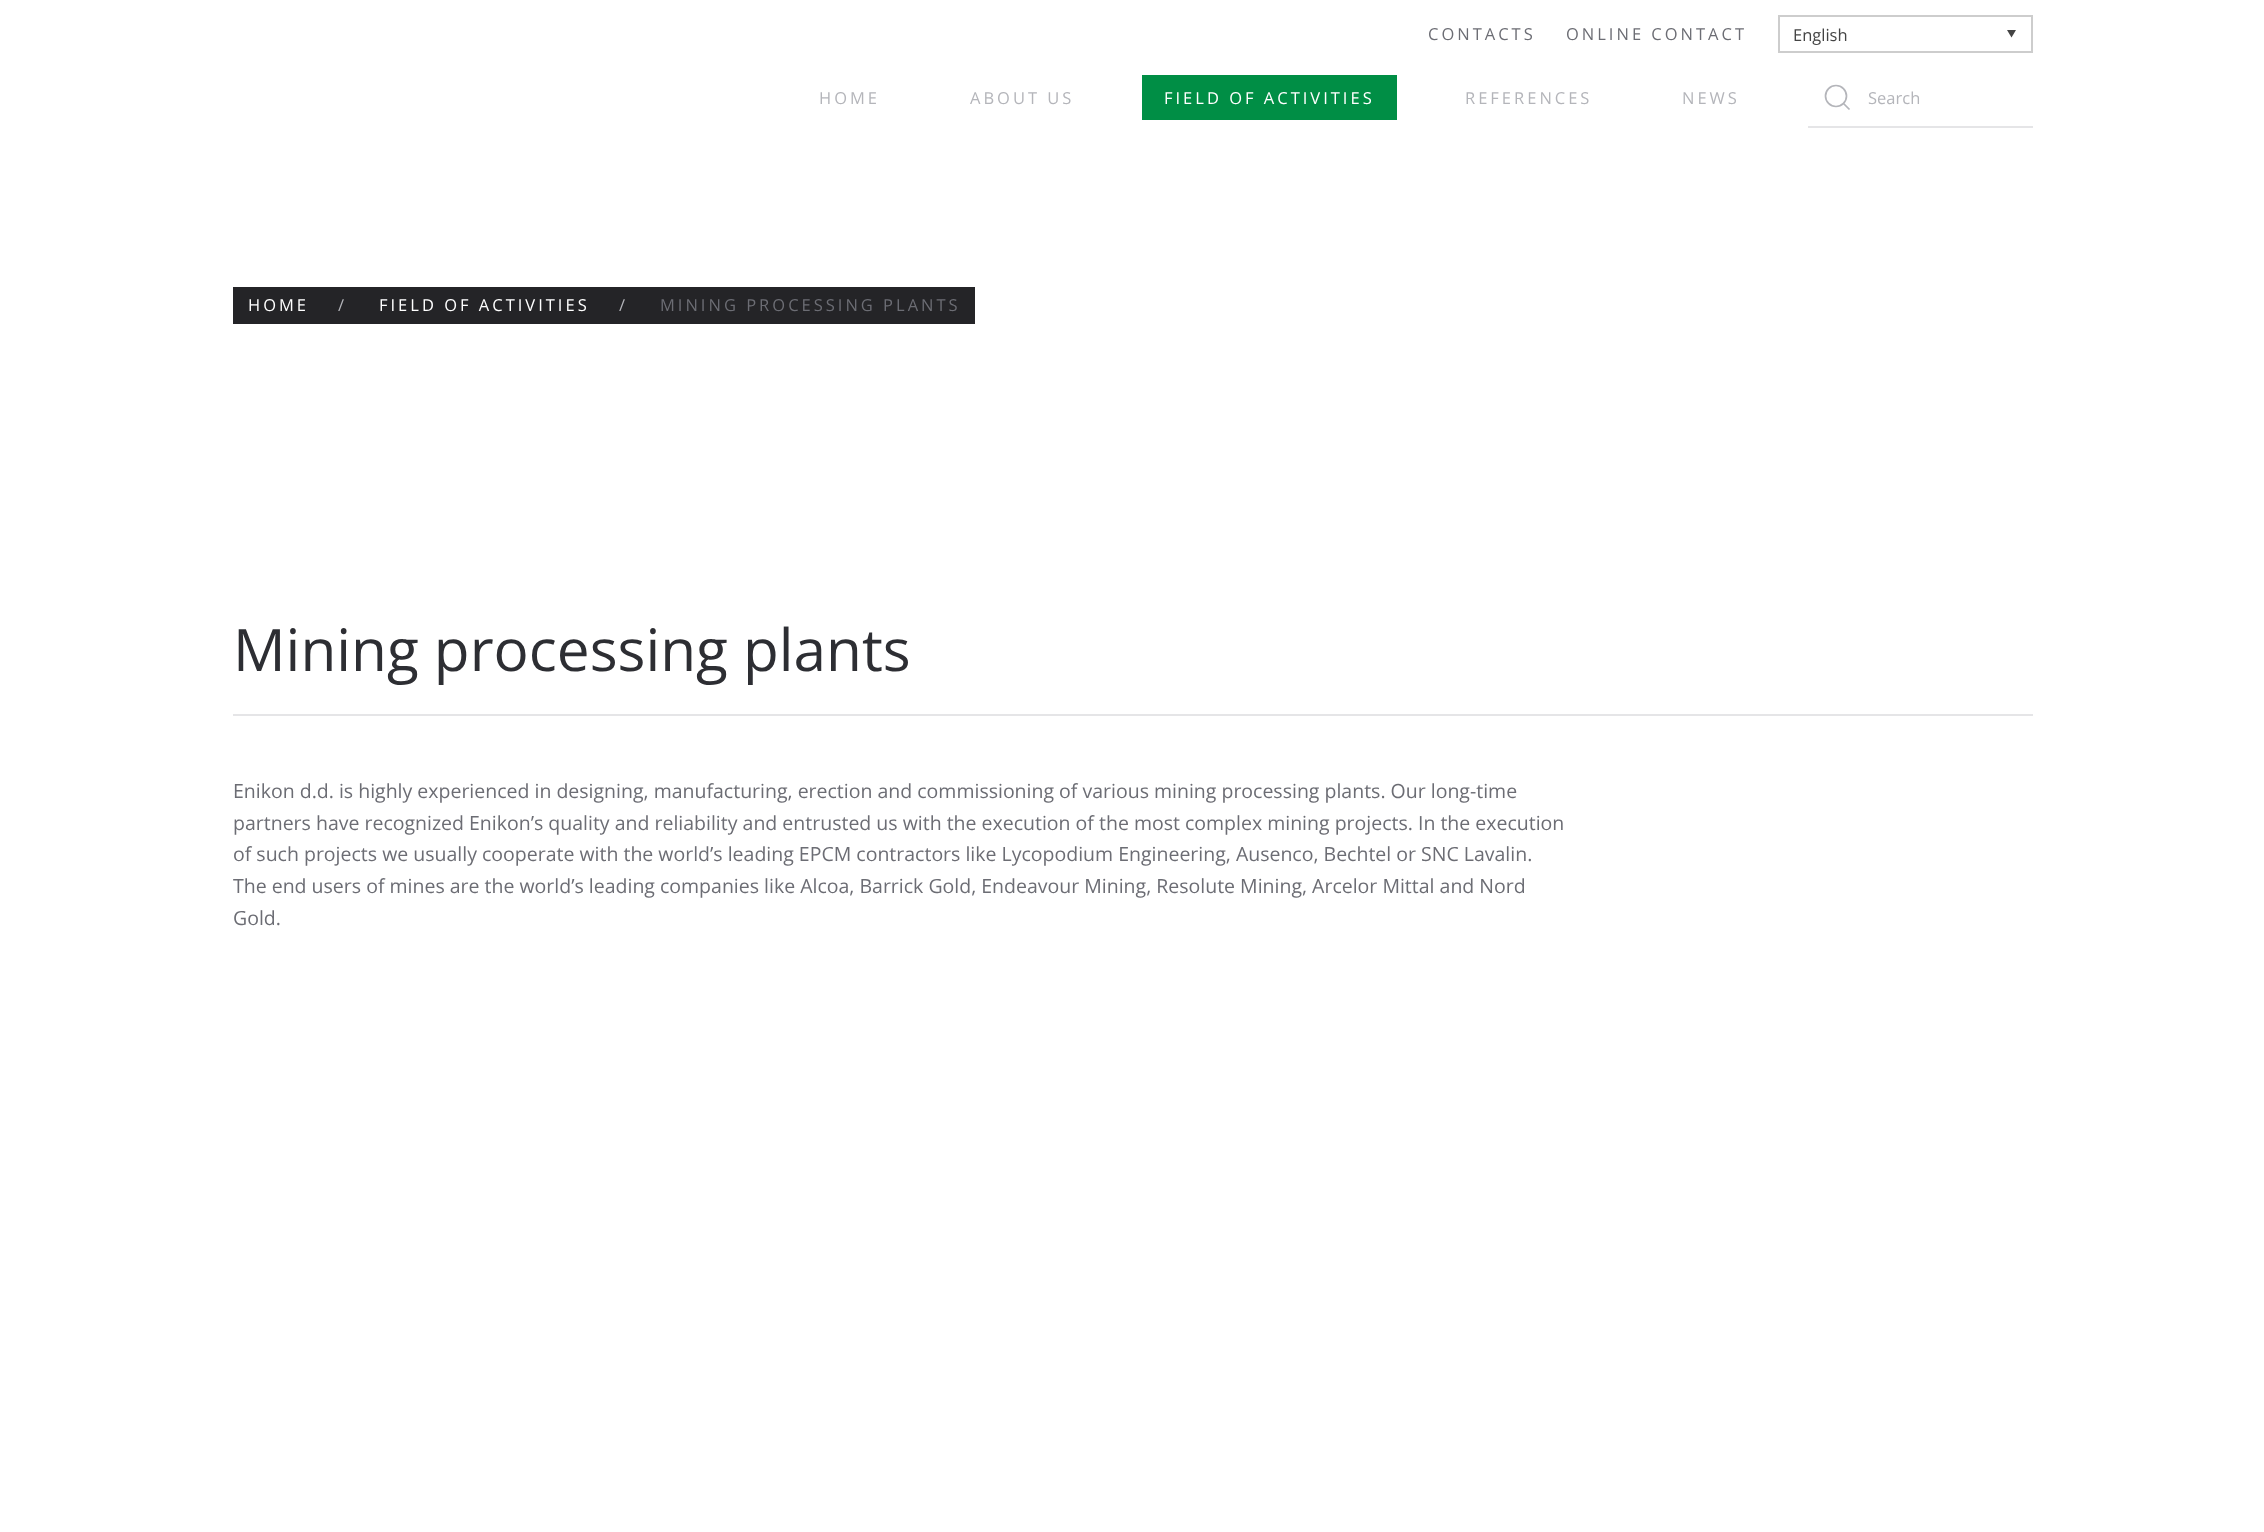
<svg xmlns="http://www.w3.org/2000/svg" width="2264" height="1532">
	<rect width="100%" height="100%" fill="#FFFFFF" />
	<g font-family="Open Sans" font-size="16.5" letter-spacing="3" fill="#6C6D74">
		<text x="1428" y="40">CONTACTS</text>
		<text x="1566" y="40">ONLINE CONTACT</text>
	</g>
	<rect x="1779" y="16" width="253" height="36" fill="none" stroke="#CDCDCD" stroke-width="2" />
	<text x="1793" y="41" font-family="Open Sans" font-size="16.5" fill="#444444">English</text>
	<path d="M2007 30H2016L2011.5 37.5Z" fill="#444444" />
	<g font-family="Open Sans" font-size="16.5" letter-spacing="3" fill="#B4B5BA">
		<text x="819" y="104">HOME</text>
		<text x="970" y="104">ABOUT US</text>
	</g>
	<rect x="1142" y="75" width="255" height="45" fill="#008E45" />
	<text x="1164" y="104" font-family="Open Sans" font-size="16.5" letter-spacing="3" fill="#FFFFFF">FIELD OF ACTIVITIES</text>
	<g font-family="Open Sans" font-size="16.5" letter-spacing="3" fill="#B4B5BA">
		<text x="1465" y="104">REFERENCES</text>
		<text x="1682" y="104">NEWS</text>
	</g>
	<circle cx="1836" cy="96" r="10.5" fill="none" stroke="#B4B5BA" stroke-width="1.7" />
	<path d="M1843.5 103.5L1849.5 109.5Z" fill="none" stroke="#B4B5BA" stroke-width="1.7" />
	<rect x="1808" y="126" width="225" height="2" fill="#E5E5E7" />
	<text x="1868" y="104" font-family="Open Sans" font-size="16.5" fill="#B4B5BA">Search</text>
	<rect x="233" y="287" width="742" height="37" fill="#242427" />
	<text x="248" y="311" font-family="Open Sans" font-size="16.5" letter-spacing="3" fill="#FFFFFF">HOME</text>
	<text x="338" y="311" font-family="Open Sans" font-size="16.5" fill="#B4B5BA">/</text>
	<text x="379" y="311" font-family="Open Sans" font-size="16.5" letter-spacing="3" fill="#FFFFFF">FIELD OF ACTIVITIES</text>
	<text x="619" y="311" font-family="Open Sans" font-size="16.5" fill="#B4B5BA">/</text>
	<text x="660" y="311" font-family="Open Sans" font-size="16.5" letter-spacing="3" fill="#6C6D74">MINING PROCESSING PLANTS</text>
	<text x="233" y="671" font-family="Open Sans" font-size="58.5" fill="#2D2E33">Mining processing plants</text>
	<rect x="233" y="714" width="1800" height="2" fill="#E5E5E7" />
	<g font-family="Open Sans" font-size="19.5" fill="#6C6D74">
		<text x="233" y="798">Enikon d.d. is highly experienced in designing, manufacturing, erection and commissioning of various mining processing plants. Our long-time</text>
		<text x="233" y="830">partners have recognized Enikon’s quality and reliability and entrusted us with the execution of the most complex mining projects. In the execution</text>
		<text x="233" y="861">of such projects we usually cooperate with the world’s leading EPCM contractors like Lycopodium Engineering, Ausenco, Bechtel or SNC Lavalin.</text>
		<text x="233" y="893">The end users of mines are the world’s leading companies like Alcoa, Barrick Gold, Endeavour Mining, Resolute Mining, Arcelor Mittal and Nord</text>
		<text x="233" y="925">Gold.</text>
	</g>
</svg>
